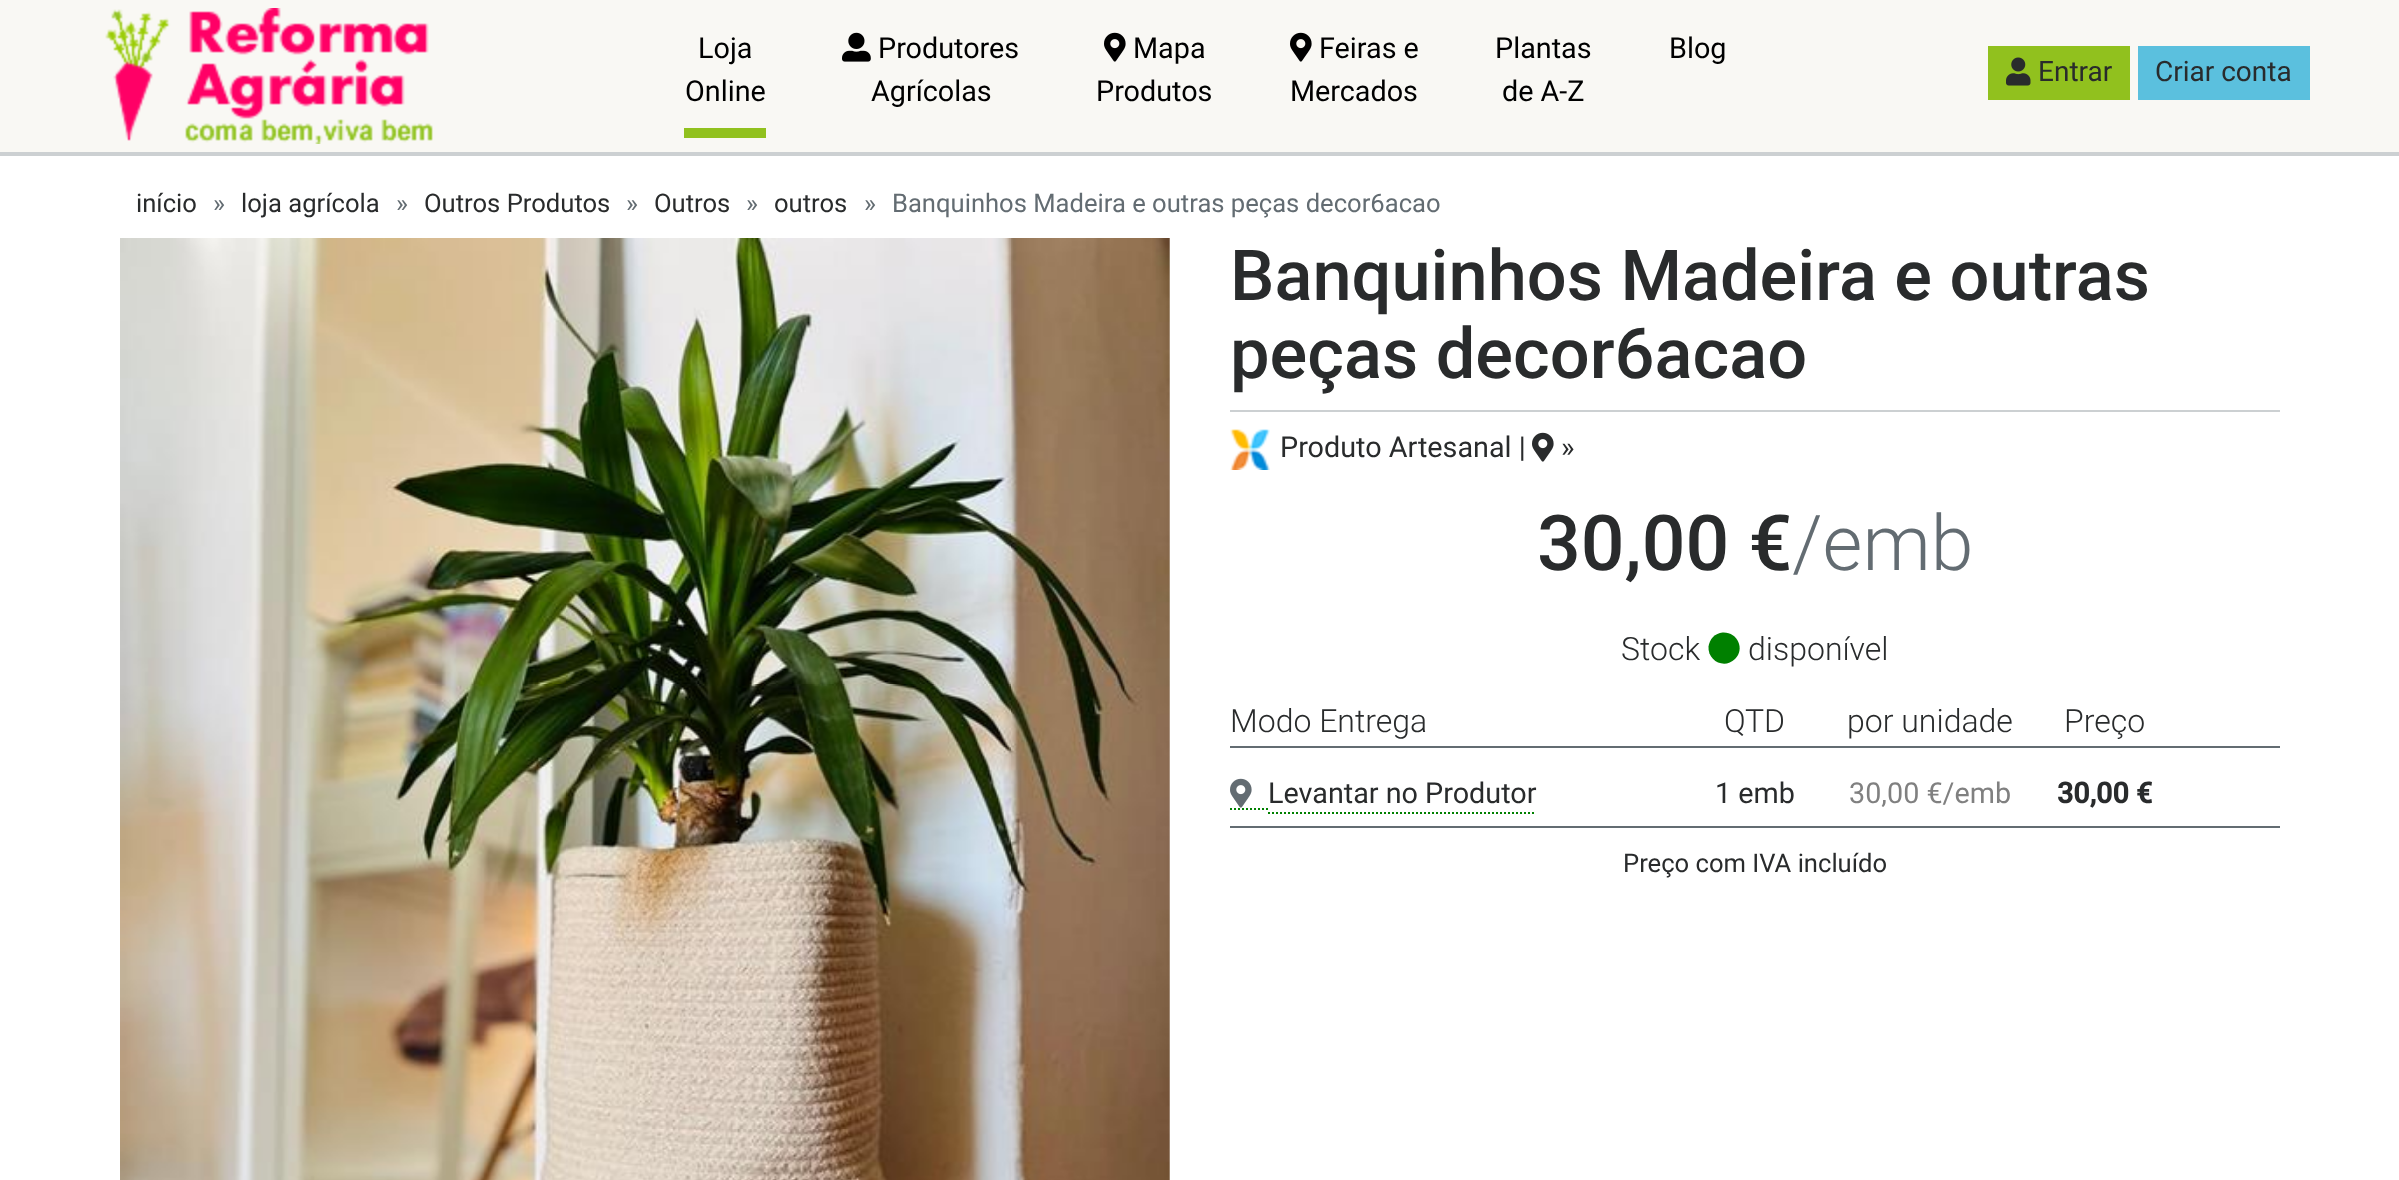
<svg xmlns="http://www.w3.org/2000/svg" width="2399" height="1180">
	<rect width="100%" height="100%" fill="#FFFFFF" />
	<rect x="0" y="152" width="2399" height="4" fill="#CCD0D2" />
	<rect x="0" y="0" width="2399" height="152" fill="#F9F8F4" />
	<image x="105" y="8" width="328" height="136" href="assets/img1.png" />
	<rect x="684" y="128" width="82" height="10" fill="#91C11E" />
	<g font-family="Roboto" font-size="28.75" fill="#000000">
		<text x="698" y="58">Loja</text>
		<text x="685" y="101">Online</text>
	</g>
	<image x="842" y="32" width="29" height="30" href="assets/img2.png" />
	<g font-family="Roboto" font-size="28.75" fill="#000000">
		<text x="878" y="58">Produtores</text>
		<text x="871" y="101">Agrícolas</text>
	</g>
	<image x="1104" y="32" width="22" height="30" href="assets/img3.png" />
	<g font-family="Roboto" font-size="28.75" fill="#000000">
		<text x="1133" y="58">Mapa</text>
		<text x="1096" y="101">Produtos</text>
	</g>
	<image x="1290" y="32" width="22" height="30" href="assets/img3.png" />
	<g font-family="Roboto" font-size="28.75" fill="#000000">
		<text x="1319" y="58">Feiras e</text>
		<text x="1290" y="101">Mercados</text>
		<text x="1495" y="58">Plantas</text>
		<text x="1502" y="101">de A-Z</text>
		<text x="1669" y="58">Blog</text>
	</g>
	<rect x="1988" y="46" width="142" height="54" fill="#91C11E" />
	<image x="2006" y="57" width="25" height="29" href="assets/img4.png" />
	<text x="2038" y="81" font-family="Roboto" font-size="28" fill="#292B2C">Entrar</text>
	<rect x="2138" y="46" width="172" height="54" fill="#5BC0DE" />
	<text x="2155" y="81" font-family="Roboto" font-size="28" fill="#292B2C">Criar conta</text>
	<text x="136" y="212" font-family="Roboto" font-size="25.6" fill="#292B2C">início</text>
	<text x="213" y="212" font-family="Roboto" font-size="25.6" fill="#636C72">»</text>
	<text x="241" y="212" font-family="Roboto" font-size="25.6" fill="#292B2C">loja agrícola</text>
	<text x="396" y="212" font-family="Roboto" font-size="25.6" fill="#636C72">»</text>
	<text x="424" y="212" font-family="Roboto" font-size="25.6" fill="#292B2C">Outros Produtos</text>
	<text x="626" y="212" font-family="Roboto" font-size="25.6" fill="#636C72">»</text>
	<text x="654" y="212" font-family="Roboto" font-size="25.6" fill="#292B2C">Outros</text>
	<text x="746" y="212" font-family="Roboto" font-size="25.6" fill="#636C72">»</text>
	<text x="774" y="212" font-family="Roboto" font-size="25.6" fill="#292B2C">outros</text>
	<g font-family="Roboto" font-size="25.6" fill="#636C72">
		<text x="864" y="212">»</text>
		<text x="892" y="212">Banquinhos Madeira e outras peças decor6acao</text>
	</g>
	<image x="120" y="238" width="1050" height="942" href="assets/img5.png" />
	<rect x="1230" y="410" width="1050" height="2" fill="#CCD0D2" />
	<g font-family="Roboto" font-size="70.4" font-weight="500" fill="#292B2C">
		<text x="1230" y="300">Banquinhos Madeira e outras</text>
		<text x="1230" y="378">peças decor6acao</text>
	</g>
	<image x="1230" y="429" width="40" height="41" href="assets/img6.png" />
	<text x="1280" y="457" font-family="Roboto" font-size="28.75" fill="#292B2C">Produto Artesanal |</text>
	<image x="1532" y="432" width="22" height="30" href="assets/img7.png" />
	<text x="1561" y="457" font-family="Roboto" font-size="28.75" fill="#292B2C">»</text>
	<text x="1537" y="570" font-family="Roboto" font-size="77" font-weight="500" fill="#292B2C">30,00 €</text>
	<text x="1792" y="570" font-family="Roboto" font-size="77" font-weight="300" fill="#636C72">/emb</text>
	<text x="1621" y="660" font-family="Roboto" font-size="32" font-weight="300" fill="#292B2C">Stock</text>
	<path d="M1713 637C1715.5 634.5 1719 633 1722.5 632.5C1737 631.5 1745.5 648.5 1735 659C1724.5 669.5 1707.5 661 1708.5 646.5C1709 643 1710.5 639.5 1713 637Z" fill="#008000" />
	<text x="1748" y="660" font-family="Roboto" font-size="32" font-weight="300" fill="#292B2C">disponível</text>
	<rect x="1230" y="826" width="1050" height="2" fill="#636C72" />
	<rect x="1230" y="746" width="1050" height="2" fill="#636C72" />
	<g font-family="Roboto" font-size="32" font-weight="300" fill="#292B2C">
		<text x="1230" y="732">Modo Entrega</text>
		<text x="1724" y="732">QTD</text>
		<text x="1847" y="732">por unidade</text>
		<text x="2064" y="732">Preço</text>
	</g>
	<path d="M1230 809H1268" fill="none" stroke="#008000" stroke-width="2" stroke-dasharray="2 2" />
	<path d="M1268 813H1536" fill="none" stroke="#008000" stroke-width="2" stroke-dasharray="2 2" />
	<image x="1230" y="778" width="22" height="30" href="assets/img8.png" />
	<g font-family="Roboto" font-size="28.75" fill="#292B2C">
		<text x="1268" y="803">Levantar no Produtor</text>
		<text x="1715" y="803">1 emb</text>
	</g>
	<text x="1849" y="803" font-family="Roboto" font-size="28.75" fill="#808080">30,00 €/emb</text>
	<text x="2057" y="803" font-family="Roboto" font-size="28.75" font-weight="700" fill="#292B2C">30,00 €</text>
	<text x="1623" y="872" font-family="Roboto" font-size="25.6" fill="#292B2C">Preço com IVA incluído</text>
</svg>
